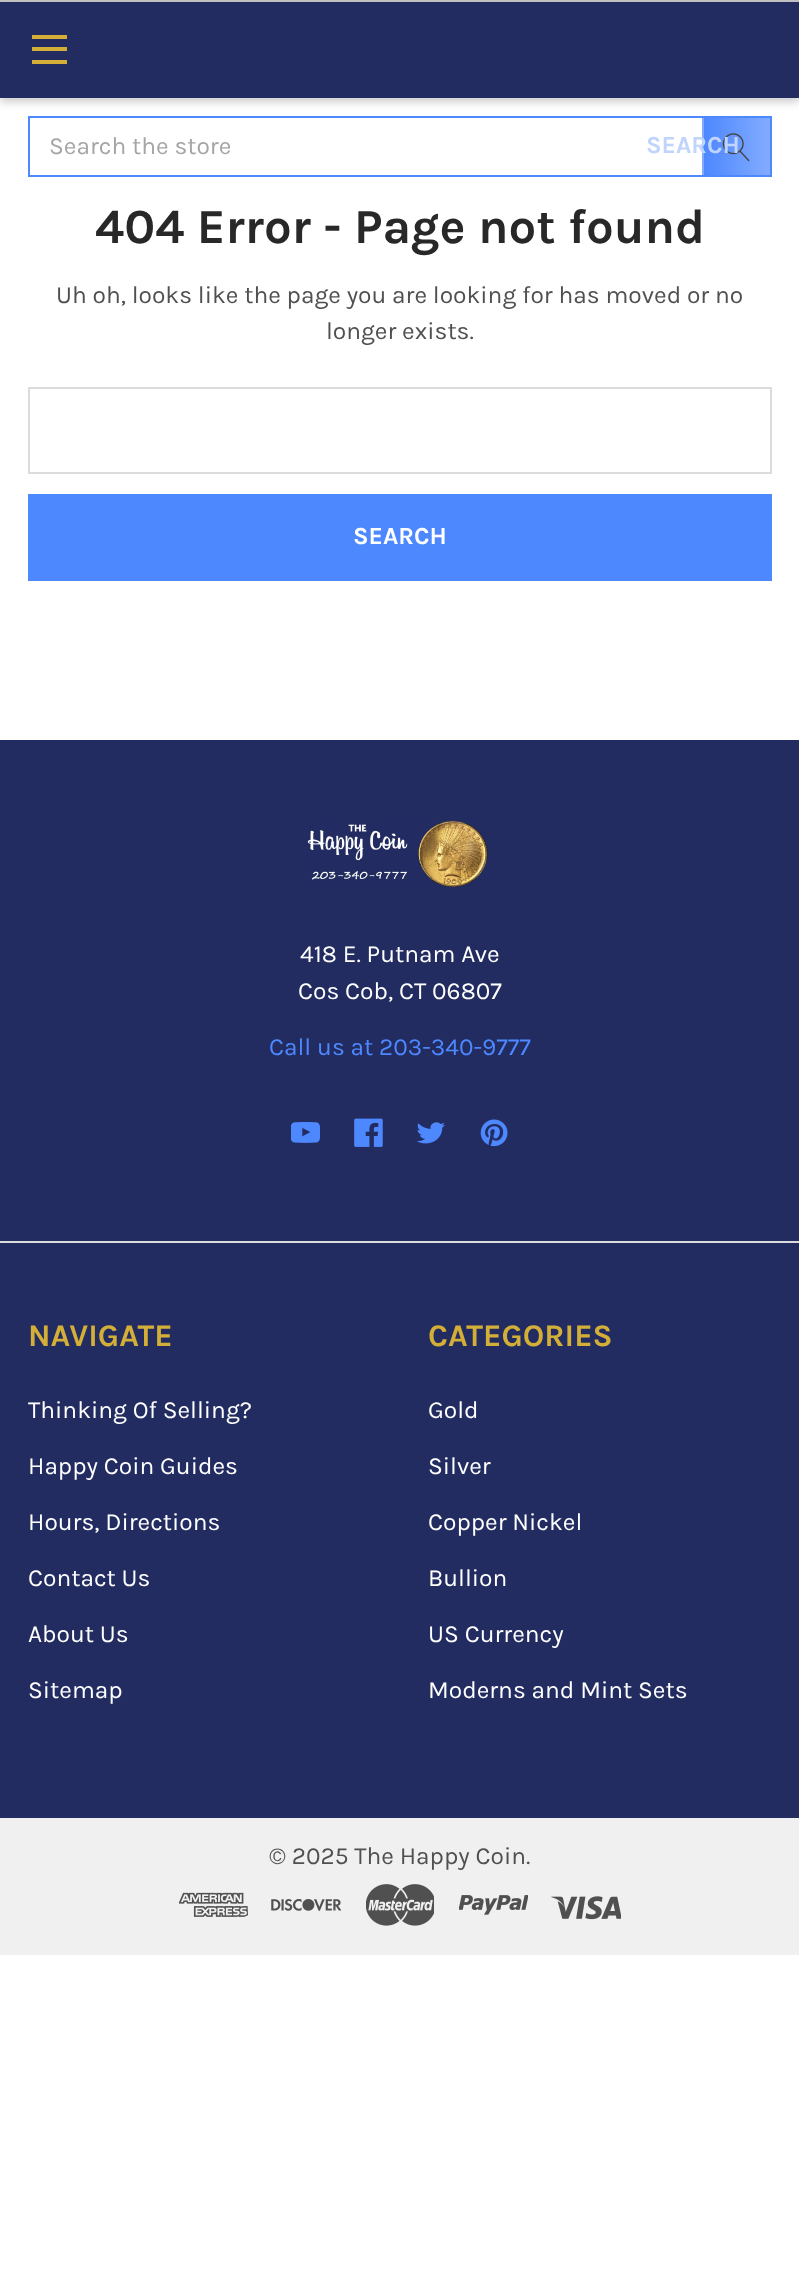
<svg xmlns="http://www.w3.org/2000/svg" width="799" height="2292">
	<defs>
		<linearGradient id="g1" gradientUnits="userSpaceOnUse" x1="637" y1="146" x2="704" y2="146"><stop offset="0" stop-color="#4D88FF" /><stop offset="1" stop-color="#4D88FF" stop-opacity="0.7" /></linearGradient>
		<linearGradient id="g2" gradientUnits="userSpaceOnUse" x1="704" y1="146" x2="770" y2="146"><stop offset="0" stop-color="#4D88FF" /><stop offset="1" stop-color="#4D88FF" stop-opacity="0.7" /></linearGradient>
	</defs>
	<rect width="100%" height="100%" fill="#FFFFFF" />
	<rect x="29" y="117" width="742" height="59" fill="none" stroke="#4D88FF" stroke-width="2" />
	<rect x="702" y="116" width="2" height="61" fill="url(#g1)" />
	<rect x="0" y="4" width="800" height="98" fill="#000000" fill-opacity="0.2" filter="blur(4.5px)" />
	<rect x="0" y="2" width="799" height="96" fill="#222C61" />
	<rect x="0" y="0" width="799" height="2" fill="#C0C0C0" />
	<rect x="32" y="47" width="35" height="4" fill="#D4AF37" />
	<rect x="32" y="35" width="35" height="4" fill="#D4AF37" />
	<rect x="32" y="60" width="35" height="4" fill="#D4AF37" />
	<rect x="704" y="118" width="66" height="57" fill="url(#g2)" />
	<image x="722" y="133" width="28" height="29" href="assets/img1.png" />
	<text x="49" y="154" font-family="Karla" font-size="24.5" fill="#A5A5A5">Search the store</text>
	<text x="646" y="153" font-family="Karla" font-size="24.5" font-weight="700" fill="#C0D4FC">SEARCH</text>
	<text x="95" y="243" font-family="Karla" font-size="49" font-weight="700" fill="#282828">404 Error - Page not found</text>
	<g font-family="Karla" font-size="24.5" fill="#505050">
		<text x="56" y="303">Uh oh, looks like the page you are looking for has moved or no</text>
		<text x="326" y="339">longer exists.</text>
	</g>
	<rect x="29" y="388" width="742" height="85" fill="none" stroke="#DCDCDC" stroke-width="2" />
	<rect x="28" y="494" width="744" height="87" fill="#4D88FF" />
	<text x="353" y="544" font-family="Karla" font-size="24.5" font-weight="700" fill="#FFFFFF">SEARCH</text>
	<rect x="0" y="740" width="799" height="1078" fill="#222C61" />
	<rect x="0" y="1241" width="799" height="2" fill="#DCDCDC" />
	<image x="307" y="820" width="181" height="67" href="assets/img2.png" />
	<g font-family="Karla" font-size="24.5" fill="#FFFFFF">
		<text x="300" y="962">418 E. Putnam Ave</text>
		<text x="298" y="999">Cos Cob, CT 06807</text>
	</g>
	<text x="269" y="1055" font-family="Karla" font-size="24.5" fill="#4D88FF">Call us at 203-340-9777</text>
	<image x="291" y="1122" width="29" height="21" href="assets/img3.png" />
	<image x="354" y="1118" width="29" height="29" href="assets/img4.png" />
	<image x="417" y="1122" width="28" height="22" href="assets/img5.png" />
	<image x="480" y="1119" width="28" height="28" href="assets/img6.png" />
	<text x="28" y="1346" font-family="Karla" font-size="31.5" font-weight="700" fill="#D4AF37">NAVIGATE</text>
	<g font-family="Karla" font-size="24.5" fill="#FFFFFF">
		<text x="28" y="1418">Thinking Of Selling?</text>
		<text x="28" y="1474">Happy Coin Guides</text>
		<text x="28" y="1530">Hours, Directions</text>
		<text x="28" y="1586">Contact Us</text>
		<text x="28" y="1642">About Us</text>
		<text x="28" y="1698">Sitemap</text>
	</g>
	<text x="428" y="1346" font-family="Karla" font-size="31.5" font-weight="700" fill="#D4AF37">CATEGORIES</text>
	<g font-family="Karla" font-size="24.5" fill="#FFFFFF">
		<text x="428" y="1418">Gold</text>
		<text x="428" y="1474">Silver</text>
		<text x="428" y="1530">Copper Nickel</text>
		<text x="428" y="1586">Bullion</text>
		<text x="428" y="1642">US Currency</text>
		<text x="428" y="1698">Moderns and Mint Sets</text>
	</g>
	<rect x="0" y="1818" width="799" height="137" fill="#F0F0F0" />
	<text x="269" y="1864" font-family="Karla" font-size="24.5" fill="#505050">© 2025 The Happy Coin.</text>
	<image x="179" y="1892" width="69" height="25" href="assets/img7.png" />
	<image x="271" y="1899" width="70" height="12" href="assets/img8.png" />
	<image x="366" y="1884" width="68" height="42" href="assets/img9.png" />
	<image x="459" y="1895" width="69" height="20" href="assets/img10.png" />
	<image x="551" y="1896" width="70" height="24" href="assets/img11.png" />
</svg>
